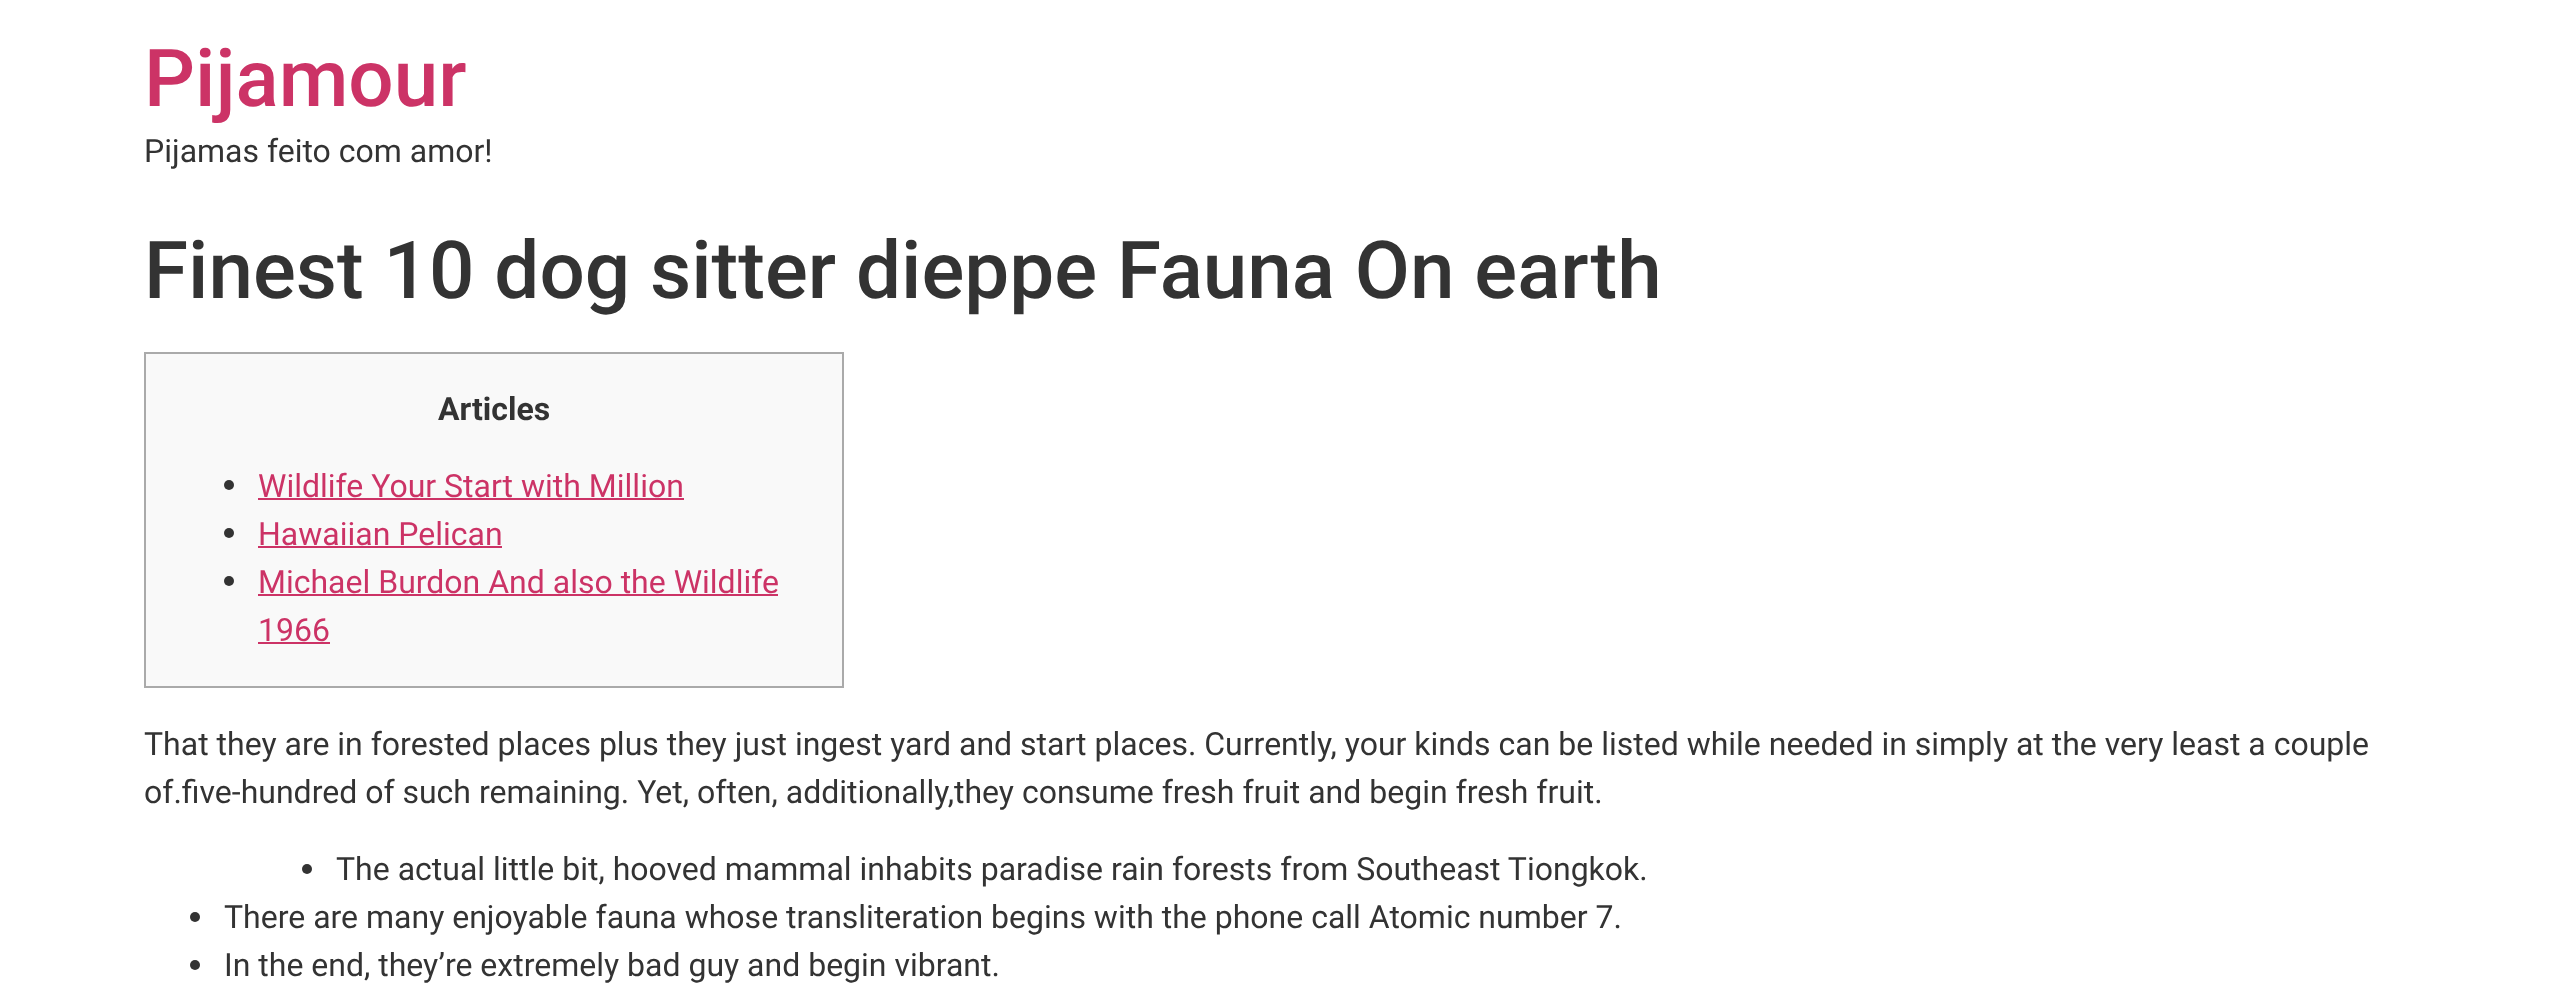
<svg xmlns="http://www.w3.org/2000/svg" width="2567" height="1006">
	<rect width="100%" height="100%" fill="#FFFFFF" />
	<text x="144" y="106" font-family="Roboto" font-size="80" font-weight="500" fill="#CC3366">Pijamour</text>
	<text x="144" y="162" font-family="Roboto" font-size="32" fill="#333333">Pijamas feito com amor!</text>
	<text x="144" y="298" font-family="Roboto" font-size="80" font-weight="500" fill="#333333">Finest 10 dog sitter dieppe Fauna On earth</text>
	<rect x="145" y="353" width="698" height="334" fill="#F9F9F9" stroke="#AAAAAA" stroke-width="2" />
	<text x="438" y="420" font-family="Roboto" font-size="32" font-weight="700" fill="#333333">Articles</text>
	<circle cx="229" cy="485" r="5" fill="#333333" />
	<text x="258" y="497" font-family="Roboto" font-size="32" fill="#CC3366">Wildlife Your Start with Million</text>
	<rect x="258" y="498" width="426" height="2" fill="#CC3366" />
	<circle cx="229" cy="533" r="5" fill="#333333" />
	<text x="258" y="545" font-family="Roboto" font-size="32" fill="#CC3366">Hawaiian Pelican</text>
	<rect x="258" y="546" width="244" height="2" fill="#CC3366" />
	<circle cx="229" cy="581" r="5" fill="#333333" />
	<text x="258" y="593" font-family="Roboto" font-size="32" fill="#CC3366">Michael Burdon And also the Wildlife</text>
	<rect x="258" y="594" width="520" height="2" fill="#CC3366" />
	<text x="258" y="641" font-family="Roboto" font-size="32" fill="#CC3366">1966</text>
	<rect x="258" y="642" width="72" height="2" fill="#CC3366" />
	<g font-family="Roboto" font-size="32" fill="#333333">
		<text x="144" y="755">That they are in forested places plus they just ingest yard and start places. Currently, your kinds can be listed while needed in simply at the very least a couple</text>
		<text x="144" y="803">of.five-hundred of such remaining. Yet, often, additionally,they consume fresh fruit and begin fresh fruit.</text>
	</g>
	<circle cx="307" cy="869" r="5" fill="#333333" />
	<text x="336" y="880" font-family="Roboto" font-size="32" fill="#333333">The actual little bit, hooved mammal inhabits paradise rain forests from Southeast Tiongkok.</text>
	<circle cx="195" cy="917" r="5" fill="#333333" />
	<text x="224" y="928" font-family="Roboto" font-size="32" fill="#333333">There are many enjoyable fauna whose transliteration begins with the phone call Atomic number 7.</text>
	<circle cx="195" cy="965" r="5" fill="#333333" />
	<text x="224" y="976" font-family="Roboto" font-size="32" fill="#333333">In the end, they’re extremely bad guy and begin vibrant.</text>
</svg>
